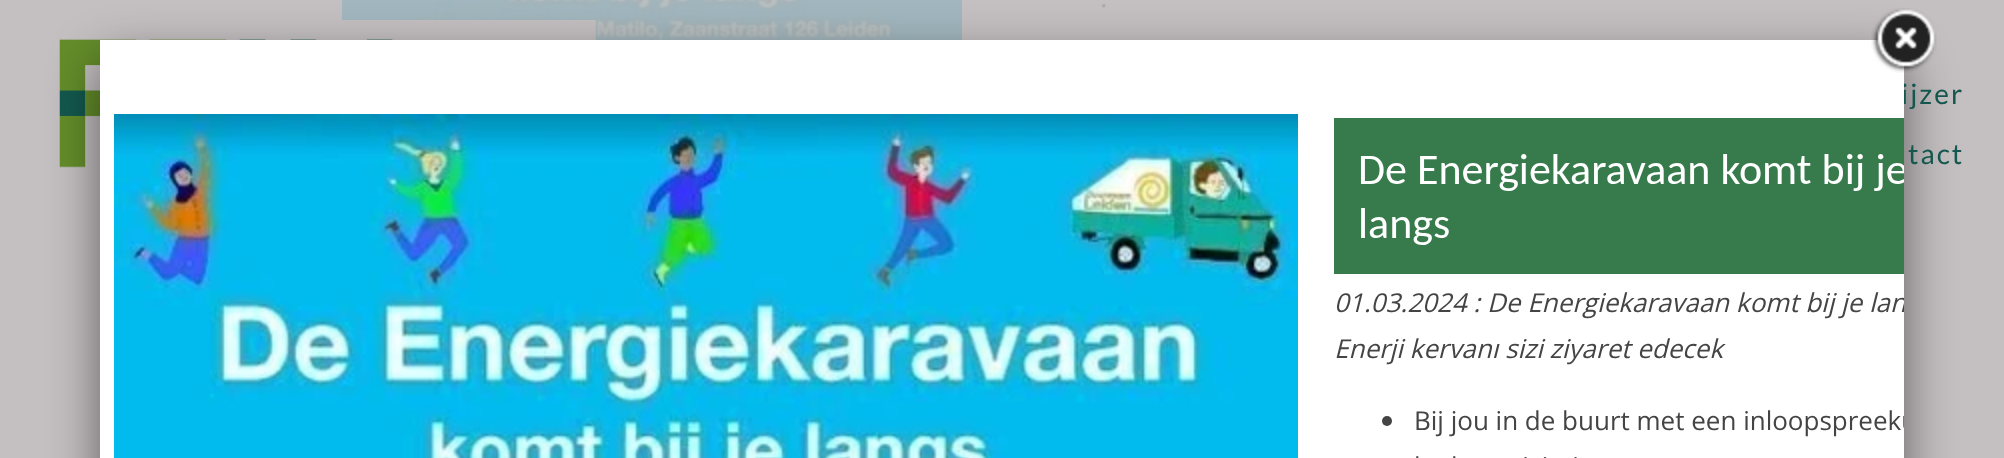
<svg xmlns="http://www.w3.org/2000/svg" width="2004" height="458">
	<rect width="100%" height="100%" fill="#C4BFC0" />
	<image x="342" y="0" width="620" height="40" href="assets/img3.png" />
	<image x="59" y="20" width="537" height="170" href="assets/img4.png" />
	<rect x="100" y="60" width="1804" height="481" rx="8" fill="#000000" fill-opacity="0.5" filter="blur(25px)" />
	<text x="1901" y="104" font-family="Lato" font-size="28" letter-spacing="2" fill="#13574E">ijzer</text>
	<rect x="100" y="40" width="1804" height="418" fill="#FFFFFF" />
	<image x="1871" y="8" width="66" height="65" href="assets/img1.png" />
	<image x="114" y="114" width="1790" height="344" href="assets/img2.png" />
	<text x="1100" y="7" font-family="Open Sans" font-size="26" font-style="italic" fill="#AAA5A6">.</text>
	<text x="1908" y="164" font-family="Lato" font-size="28" letter-spacing="2" fill="#13574E">tact</text>
</svg>
